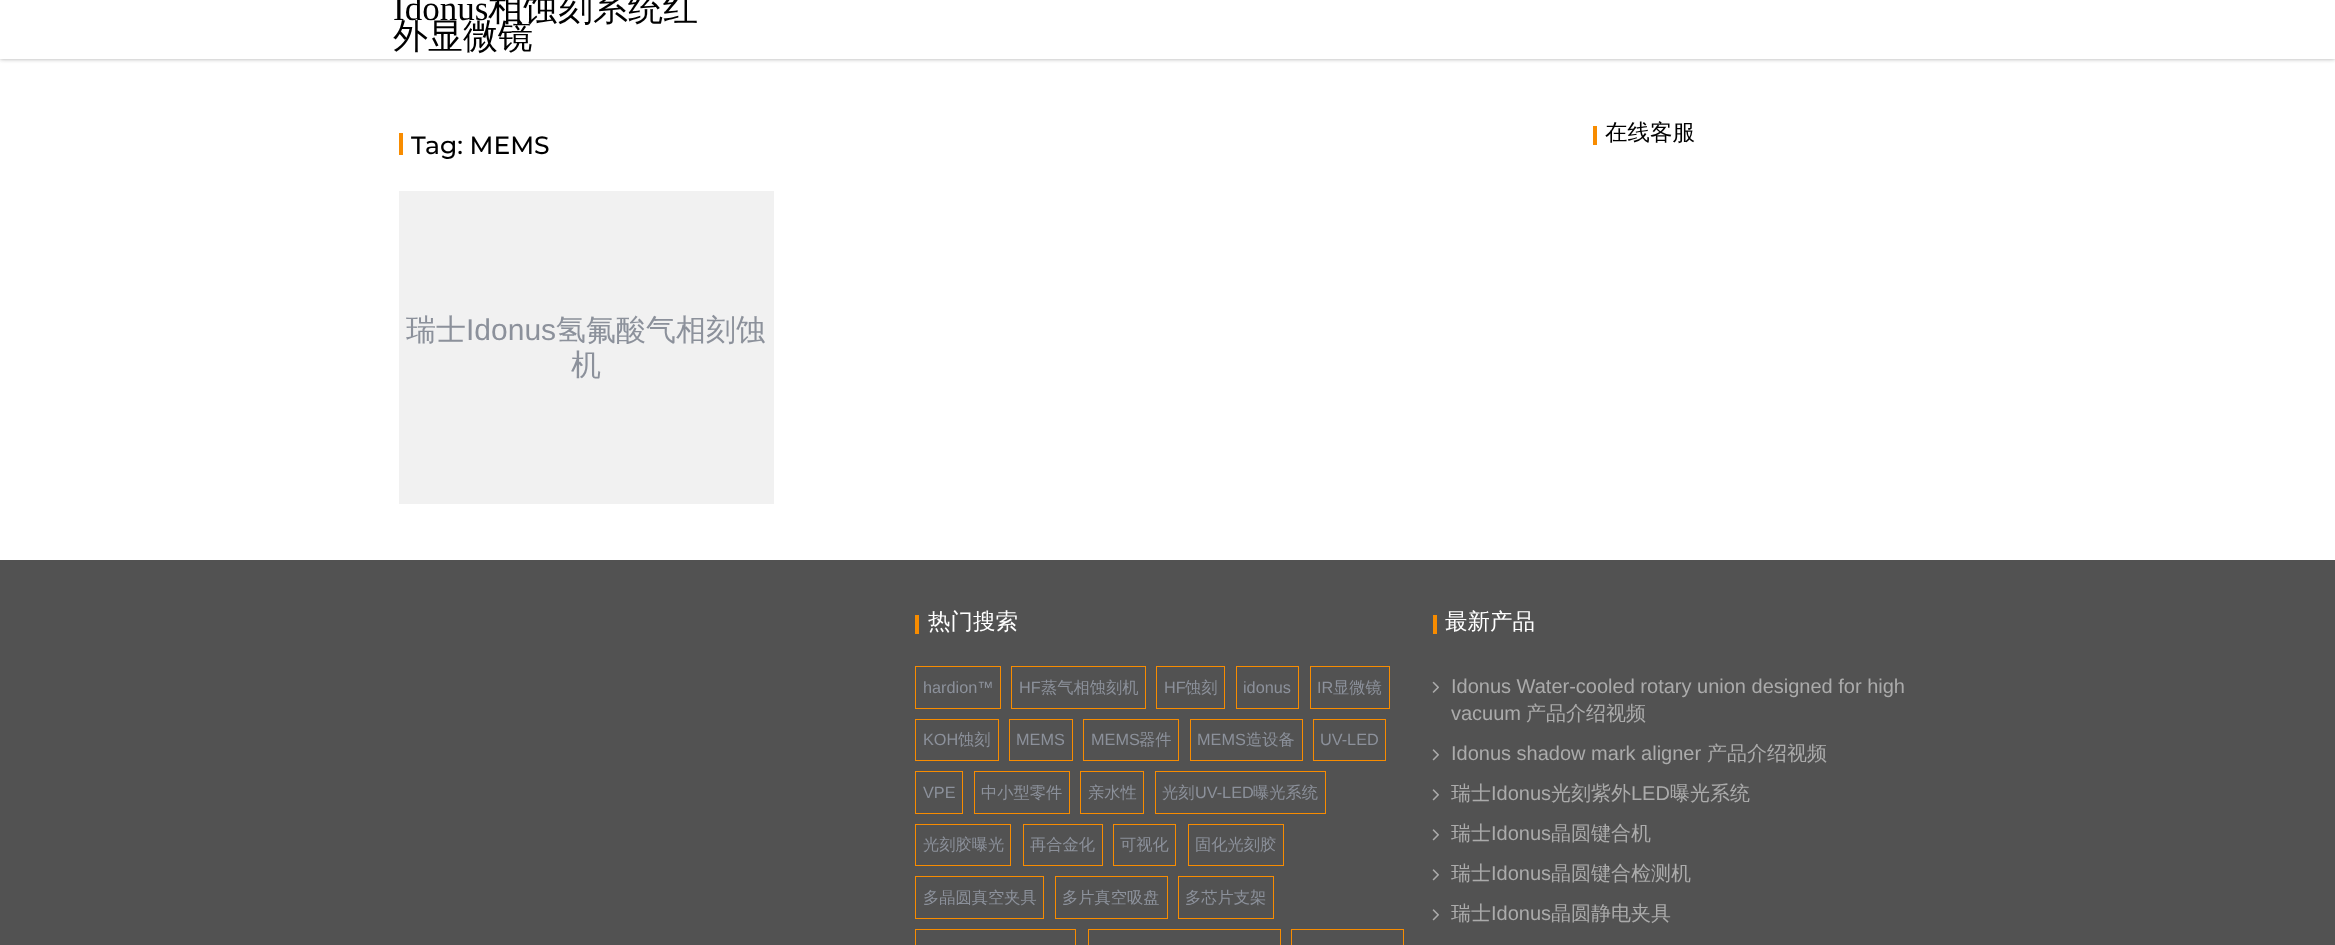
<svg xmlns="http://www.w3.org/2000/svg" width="2335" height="945">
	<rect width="100%" height="100%" fill="#FFFFFF" />
	<rect x="0" y="-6" width="2335" height="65" fill="#AAAAAA" filter="blur(2px)" />
	<rect x="0" y="0" width="2335" height="59" fill="#FFFFFF" />
	<text x="393" y="20" font-family="Liberation Serif" font-size="35" fill="#000000">Idonus</text>
	<g font-family="WenQuanYi Zen Hei" font-size="35" font-weight="500" fill="#000000">
		<text x="488" y="20">相蚀刻系统红</text>
		<text x="393" y="48">外显微镜</text>
	</g>
	<rect x="1593" y="126" width="4" height="19" fill="#F88C00" />
	<text x="1605" y="140" font-family="WenQuanYi Zen Hei" font-size="22.5" font-weight="500" fill="#000000">在线客服</text>
	<rect x="399" y="133" width="4" height="22" fill="#F88C00" />
	<text x="411" y="154" font-family="Montserrat" font-size="25" font-weight="500" fill="#000000">Tag: MEMS</text>
	<rect x="399" y="191" width="375" height="313" fill="#F1F1F1" />
	<text x="406" y="340" font-family="WenQuanYi Zen Hei" font-size="30" font-weight="500" fill="#8C919B">瑞士</text>
	<text x="466" y="340" font-family="Liberation Sans" font-size="30" fill="#8C919B">Idonus</text>
	<g font-family="WenQuanYi Zen Hei" font-size="30" font-weight="500" fill="#8C919B">
		<text x="556" y="340">氢氟酸气相刻蚀</text>
		<text x="571" y="375">机</text>
	</g>
	<rect x="0" y="560" width="2335" height="385" fill="#525252" />
	<rect x="915" y="615" width="4" height="19" fill="#F88C00" />
	<text x="928" y="629" font-family="WenQuanYi Zen Hei" font-size="22.5" font-weight="500" fill="#FFFFFF">热门搜索</text>
	<rect x="915.5" y="666.5" width="85" height="42" fill="none" stroke="#F88C00" />
	<text x="923" y="693" font-family="Liberation Sans" font-size="16.25" fill="#8C919B">hardion™</text>
	<rect x="1011.5" y="666.5" width="134" height="42" fill="none" stroke="#F88C00" />
	<text x="1019" y="693" font-family="Liberation Sans" font-size="16.25" fill="#8C919B">HF</text>
	<text x="1041" y="693" font-family="WenQuanYi Zen Hei" font-size="16.25" font-weight="500" fill="#8C919B">蒸气相蚀刻机</text>
	<rect x="1156.5" y="666.5" width="68" height="42" fill="none" stroke="#F88C00" />
	<text x="1164" y="693" font-family="Liberation Sans" font-size="16.25" fill="#8C919B">HF</text>
	<text x="1185" y="693" font-family="WenQuanYi Zen Hei" font-size="16.25" font-weight="500" fill="#8C919B">蚀刻</text>
	<rect x="1236.5" y="666.5" width="62" height="42" fill="none" stroke="#F88C00" />
	<text x="1243" y="693" font-family="Liberation Sans" font-size="16.25" fill="#8C919B">idonus</text>
	<rect x="1310.5" y="666.5" width="79" height="42" fill="none" stroke="#F88C00" />
	<text x="1317" y="693" font-family="Liberation Sans" font-size="16.25" fill="#8C919B">IR</text>
	<text x="1333" y="693" font-family="WenQuanYi Zen Hei" font-size="16.25" font-weight="500" fill="#8C919B">显微镜</text>
	<rect x="915.5" y="719.5" width="83" height="41" fill="none" stroke="#F88C00" />
	<text x="923" y="745" font-family="Liberation Sans" font-size="16.25" fill="#8C919B">KOH</text>
	<text x="958" y="745" font-family="WenQuanYi Zen Hei" font-size="16.25" font-weight="500" fill="#8C919B">蚀刻</text>
	<rect x="1009.5" y="719.5" width="63" height="41" fill="none" stroke="#F88C00" />
	<text x="1016" y="745" font-family="Liberation Sans" font-size="16.25" fill="#8C919B">MEMS</text>
	<rect x="1083.5" y="719.5" width="95" height="41" fill="none" stroke="#F88C00" />
	<text x="1091" y="745" font-family="Liberation Sans" font-size="16.25" fill="#8C919B">MEMS</text>
	<text x="1139" y="745" font-family="WenQuanYi Zen Hei" font-size="16.25" font-weight="500" fill="#8C919B">器件</text>
	<rect x="1190.5" y="719.5" width="112" height="41" fill="none" stroke="#F88C00" />
	<text x="1197" y="745" font-family="Liberation Sans" font-size="16.25" fill="#8C919B">MEMS</text>
	<text x="1246" y="745" font-family="WenQuanYi Zen Hei" font-size="16.25" font-weight="500" fill="#8C919B">造设备</text>
	<rect x="1313.5" y="719.5" width="72" height="41" fill="none" stroke="#F88C00" />
	<text x="1320" y="745" font-family="Liberation Sans" font-size="16.25" fill="#8C919B">UV-LED</text>
	<rect x="915.5" y="771.5" width="47" height="42" fill="none" stroke="#F88C00" />
	<text x="923" y="798" font-family="Liberation Sans" font-size="16.25" fill="#8C919B">VPE</text>
	<rect x="974.5" y="771.5" width="95" height="42" fill="none" stroke="#F88C00" />
	<text x="981" y="798" font-family="WenQuanYi Zen Hei" font-size="16.25" font-weight="500" fill="#8C919B">中小型零件</text>
	<rect x="1080.5" y="771.5" width="63" height="42" fill="none" stroke="#F88C00" />
	<text x="1088" y="798" font-family="WenQuanYi Zen Hei" font-size="16.25" font-weight="500" fill="#8C919B">亲水性</text>
	<rect x="1155.5" y="771.5" width="170" height="42" fill="none" stroke="#F88C00" />
	<text x="1162" y="798" font-family="WenQuanYi Zen Hei" font-size="16.25" font-weight="500" fill="#8C919B">光刻</text>
	<text x="1195" y="798" font-family="Liberation Sans" font-size="16.25" fill="#8C919B">UV-LED</text>
	<text x="1253" y="798" font-family="WenQuanYi Zen Hei" font-size="16.25" font-weight="500" fill="#8C919B">曝光系统</text>
	<rect x="915.5" y="824.5" width="95" height="41" fill="none" stroke="#F88C00" />
	<text x="923" y="850" font-family="WenQuanYi Zen Hei" font-size="16.25" font-weight="500" fill="#8C919B">光刻胶曝光</text>
	<rect x="1023.5" y="824.5" width="79" height="41" fill="none" stroke="#F88C00" />
	<text x="1030" y="850" font-family="WenQuanYi Zen Hei" font-size="16.25" font-weight="500" fill="#8C919B">再合金化</text>
	<rect x="1113.5" y="824.5" width="62" height="41" fill="none" stroke="#F88C00" />
	<text x="1120" y="850" font-family="WenQuanYi Zen Hei" font-size="16.25" font-weight="500" fill="#8C919B">可视化</text>
	<rect x="1188.5" y="824.5" width="95" height="41" fill="none" stroke="#F88C00" />
	<text x="1195" y="850" font-family="WenQuanYi Zen Hei" font-size="16.25" font-weight="500" fill="#8C919B">固化光刻胶</text>
	<rect x="915.5" y="876.5" width="128" height="42" fill="none" stroke="#F88C00" />
	<text x="923" y="903" font-family="WenQuanYi Zen Hei" font-size="16.25" font-weight="500" fill="#8C919B">多晶圆真空夹具</text>
	<rect x="1055.5" y="876.5" width="112" height="42" fill="none" stroke="#F88C00" />
	<text x="1062" y="903" font-family="WenQuanYi Zen Hei" font-size="16.25" font-weight="500" fill="#8C919B">多片真空吸盘</text>
	<rect x="1178.5" y="876.5" width="95" height="42" fill="none" stroke="#F88C00" />
	<text x="1185" y="903" font-family="WenQuanYi Zen Hei" font-size="16.25" font-weight="500" fill="#8C919B">多芯片支架</text>
	<rect x="915.5" y="929.5" width="160" height="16" fill="none" stroke="#F88C00" />
	<rect x="1088.5" y="929.5" width="192" height="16" fill="none" stroke="#F88C00" />
	<rect x="1291.5" y="929.5" width="112" height="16" fill="none" stroke="#F88C00" />
	<rect x="1433" y="615" width="4" height="19" fill="#F88C00" />
	<text x="1445" y="629" font-family="WenQuanYi Zen Hei" font-size="22.5" font-weight="500" fill="#FFFFFF">最新产品</text>
	<image x="1432" y="681" width="7" height="12" href="assets/img1.png" />
	<g font-family="Liberation Sans" font-size="20" fill="#ABABAB">
		<text x="1451" y="693">Idonus Water-cooled rotary union designed for high</text>
		<text x="1451" y="720">vacuum</text>
	</g>
	<text x="1526" y="720" font-family="WenQuanYi Zen Hei" font-size="20" font-weight="500" fill="#ABABAB">产品介绍视频</text>
	<image x="1432" y="749" width="7" height="12" href="assets/img2.png" />
	<text x="1451" y="760" font-family="Liberation Sans" font-size="20" fill="#ABABAB">Idonus shadow mark aligner</text>
	<text x="1707" y="760" font-family="WenQuanYi Zen Hei" font-size="20" font-weight="500" fill="#ABABAB">产品介绍视频</text>
	<image x="1432" y="789" width="7" height="12" href="assets/img2.png" />
	<text x="1451" y="800" font-family="WenQuanYi Zen Hei" font-size="20" font-weight="500" fill="#ABABAB">瑞士</text>
	<text x="1491" y="800" font-family="Liberation Sans" font-size="20" fill="#ABABAB">Idonus</text>
	<text x="1551" y="800" font-family="WenQuanYi Zen Hei" font-size="20" font-weight="500" fill="#ABABAB">光刻紫外</text>
	<text x="1631" y="800" font-family="Liberation Sans" font-size="20" fill="#ABABAB">LED</text>
	<text x="1670" y="800" font-family="WenQuanYi Zen Hei" font-size="20" font-weight="500" fill="#ABABAB">曝光系统</text>
	<image x="1432" y="829" width="7" height="12" href="assets/img2.png" />
	<text x="1451" y="840" font-family="WenQuanYi Zen Hei" font-size="20" font-weight="500" fill="#ABABAB">瑞士</text>
	<text x="1491" y="840" font-family="Liberation Sans" font-size="20" fill="#ABABAB">Idonus</text>
	<text x="1551" y="840" font-family="WenQuanYi Zen Hei" font-size="20" font-weight="500" fill="#ABABAB">晶圆键合机</text>
	<image x="1432" y="869" width="7" height="12" href="assets/img2.png" />
	<text x="1451" y="880" font-family="WenQuanYi Zen Hei" font-size="20" font-weight="500" fill="#ABABAB">瑞士</text>
	<text x="1491" y="880" font-family="Liberation Sans" font-size="20" fill="#ABABAB">Idonus</text>
	<text x="1551" y="880" font-family="WenQuanYi Zen Hei" font-size="20" font-weight="500" fill="#ABABAB">晶圆键合检测机</text>
	<image x="1432" y="909" width="7" height="12" href="assets/img2.png" />
	<text x="1451" y="920" font-family="WenQuanYi Zen Hei" font-size="20" font-weight="500" fill="#ABABAB">瑞士</text>
	<text x="1491" y="920" font-family="Liberation Sans" font-size="20" fill="#ABABAB">Idonus</text>
	<text x="1551" y="920" font-family="WenQuanYi Zen Hei" font-size="20" font-weight="500" fill="#ABABAB">晶圆静电夹具</text>
</svg>
